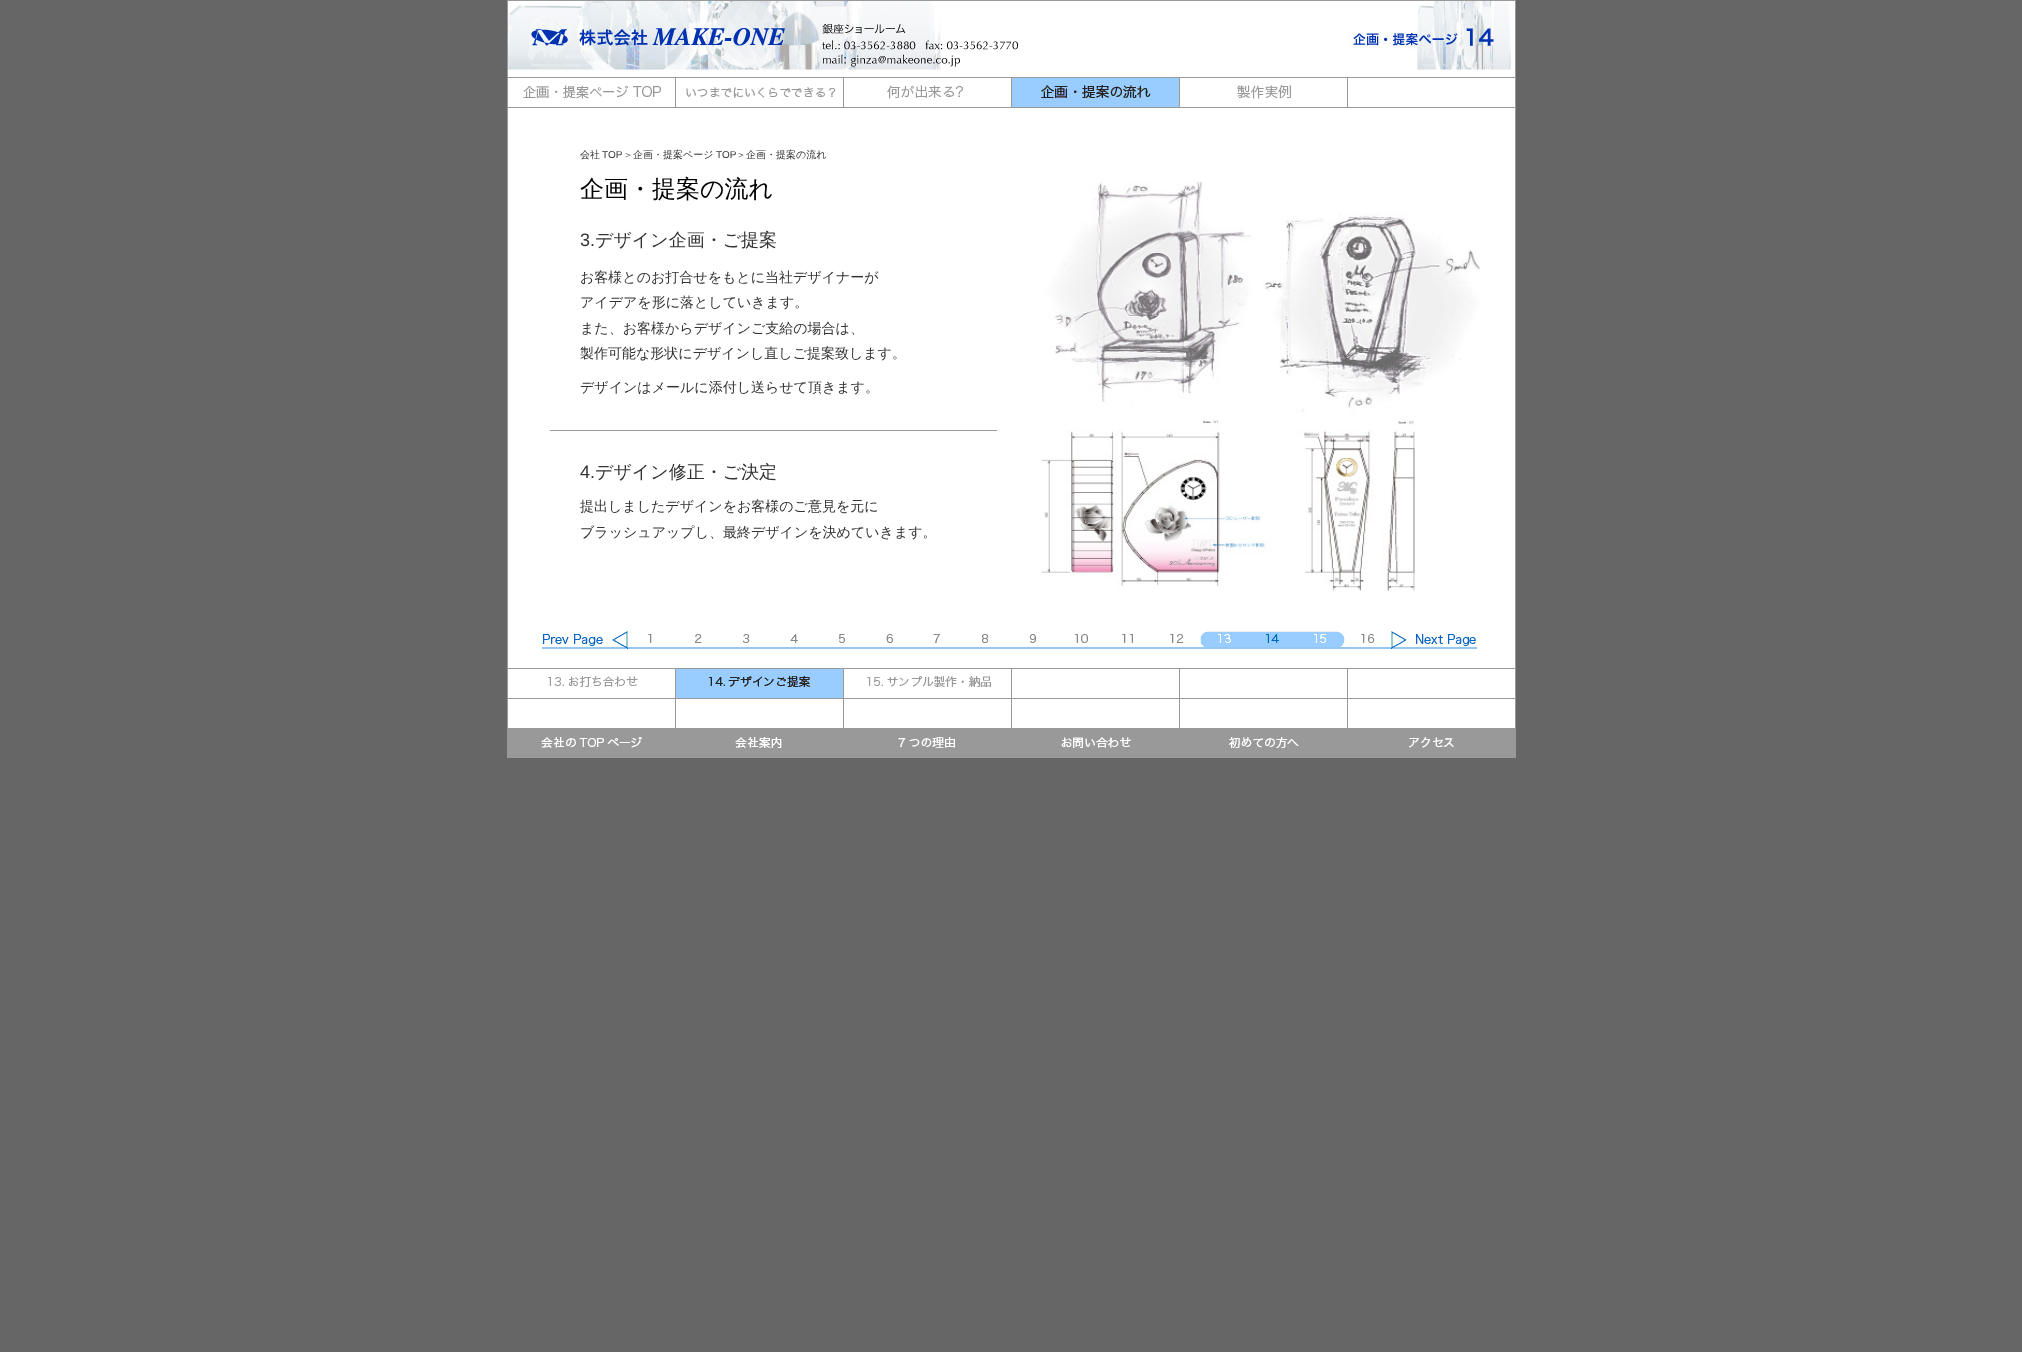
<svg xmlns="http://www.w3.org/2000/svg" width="2022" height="1352">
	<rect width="100%" height="100%" fill="#666666" />
	<rect x="508" y="1" width="1007" height="727" fill="#FFFFFF" />
	<image x="508" y="1" width="669" height="76" href="assets/img1.png" />
	<rect x="507" y="0" width="1009" height="1" fill="#999999" />
	<rect x="1515" y="0" width="1" height="77" fill="#999999" />
	<rect x="507" y="0" width="1" height="77" fill="#999999" />
	<image x="822" y="1" width="196" height="72" href="assets/img2.png" />
	<image x="1348" y="1" width="163" height="72" href="assets/img3.png" />
	<rect x="1176" y="76" width="1" height="1" fill="#FFFFFF" />
	<rect x="507" y="77" width="1009" height="1" fill="#999999" />
	<rect x="507" y="107" width="1009" height="1" fill="#999999" />
	<rect x="507" y="77" width="1" height="591" fill="#999999" />
	<image x="523" y="85" width="138" height="14" href="assets/img4.png" />
	<rect x="675" y="78" width="1" height="29" fill="#999999" />
	<image x="686" y="87" width="150" height="11" href="assets/img5.png" />
	<rect x="843" y="78" width="1" height="29" fill="#999999" />
	<image x="887" y="85" width="76" height="14" href="assets/img6.png" />
	<rect x="1011" y="78" width="1" height="29" fill="#999999" />
	<image x="1012" y="78" width="167" height="29" href="assets/img7.png" />
	<rect x="1179" y="78" width="1" height="29" fill="#999999" />
	<image x="1237" y="85" width="54" height="14" href="assets/img8.png" />
	<rect x="1347" y="78" width="1" height="29" fill="#999999" />
	<rect x="1515" y="78" width="1" height="29" fill="#999999" />
	<rect x="1515" y="108" width="1" height="560" fill="#999999" />
	<text x="580" y="158" font-family="WenQuanYi Zen Hei" font-size="10" font-weight="500" fill="#333333">会社</text>
	<text x="602" y="158" font-family="Liberation Sans" font-size="10" fill="#333333">TOP</text>
	<text x="623" y="158" font-family="WenQuanYi Zen Hei" font-size="10" font-weight="500" fill="#333333">＞企画・提案ページ</text>
	<text x="716" y="158" font-family="Liberation Sans" font-size="10" fill="#333333">TOP</text>
	<text x="736" y="158" font-family="WenQuanYi Zen Hei" font-size="10" font-weight="500" fill="#333333">＞企画・提案の流れ</text>
	<text x="580" y="197" font-family="WenQuanYi Zen Hei" font-size="24" font-weight="500" fill="#000000">企画・提案の流れ</text>
	<text x="580" y="246" font-family="Liberation Sans" font-size="18" fill="#333333">3.</text>
	<text x="595" y="246" font-family="WenQuanYi Zen Hei" font-size="18" font-weight="500" fill="#333333">デザイン企画・ご提案</text>
	<g font-family="WenQuanYi Zen Hei" font-size="14" font-weight="500" fill="#333333">
		<text x="580" y="282">お客様とのお打合せをもとに当社デザイナーが</text>
		<text x="580" y="307">アイデアを形に落としていきます。</text>
		<text x="580" y="333">また、お客様からデザインご支給の場合は、</text>
		<text x="580" y="358">製作可能な形状にデザインし直しご提案致します。</text>
		<text x="580" y="392">デザインはメールに添付し送らせて頂きます。</text>
	</g>
	<rect x="550" y="430" width="447" height="1" fill="#999999" />
	<text x="580" y="478" font-family="Liberation Sans" font-size="18" fill="#333333">4.</text>
	<text x="595" y="478" font-family="WenQuanYi Zen Hei" font-size="18" font-weight="500" fill="#333333">デザイン修正・ご決定</text>
	<g font-family="WenQuanYi Zen Hei" font-size="14" font-weight="500" fill="#333333">
		<text x="580" y="511">提出しましたデザインをお客様のご意見を元に</text>
		<text x="580" y="537">ブラッシュアップし、最終デザインを決めていきます。</text>
	</g>
	<image x="1041" y="181" width="439" height="410" href="assets/img9.png" />
	<image x="542" y="631" width="935" height="37" href="assets/img10.png" />
	<rect x="507" y="668" width="1009" height="1" fill="#999999" />
	<rect x="507" y="668" width="1" height="30" fill="#999999" />
	<image x="548" y="676" width="90" height="11" href="assets/img11.png" />
	<rect x="675" y="669" width="1" height="29" fill="#999999" />
	<image x="676" y="669" width="167" height="29" href="assets/img12.png" />
	<rect x="843" y="669" width="1" height="29" fill="#999999" />
	<image x="867" y="676" width="124" height="11" href="assets/img13.png" />
	<rect x="1011" y="669" width="1" height="29" fill="#999999" />
	<rect x="1179" y="669" width="1" height="29" fill="#999999" />
	<rect x="1347" y="669" width="1" height="29" fill="#999999" />
	<rect x="1515" y="669" width="1" height="29" fill="#999999" />
	<rect x="507" y="698" width="1009" height="1" fill="#999999" />
	<rect x="507" y="698" width="1" height="30" fill="#999999" />
	<rect x="675" y="699" width="1" height="29" fill="#999999" />
	<rect x="843" y="699" width="1" height="29" fill="#999999" />
	<rect x="1011" y="699" width="1" height="29" fill="#999999" />
	<rect x="1179" y="699" width="1" height="29" fill="#999999" />
	<rect x="1347" y="699" width="1" height="29" fill="#999999" />
	<rect x="1515" y="699" width="1" height="29" fill="#999999" />
	<rect x="507" y="728" width="1009" height="1" fill="#999999" />
	<rect x="507" y="728" width="1" height="30" fill="#999999" />
	<image x="508" y="729" width="167" height="29" href="assets/img14.png" />
	<rect x="675" y="729" width="1" height="29" fill="#999999" />
	<image x="676" y="729" width="167" height="29" href="assets/img15.png" />
	<rect x="843" y="729" width="1" height="29" fill="#999999" />
	<image x="844" y="729" width="167" height="29" href="assets/img16.png" />
	<rect x="1011" y="729" width="1" height="29" fill="#999999" />
	<image x="1012" y="729" width="167" height="29" href="assets/img17.png" />
	<rect x="1179" y="729" width="1" height="29" fill="#999999" />
	<image x="1180" y="729" width="167" height="29" href="assets/img18.png" />
	<rect x="1347" y="729" width="1" height="29" fill="#999999" />
	<image x="1348" y="729" width="167" height="29" href="assets/img19.png" />
	<rect x="1515" y="729" width="1" height="29" fill="#999999" />
</svg>
